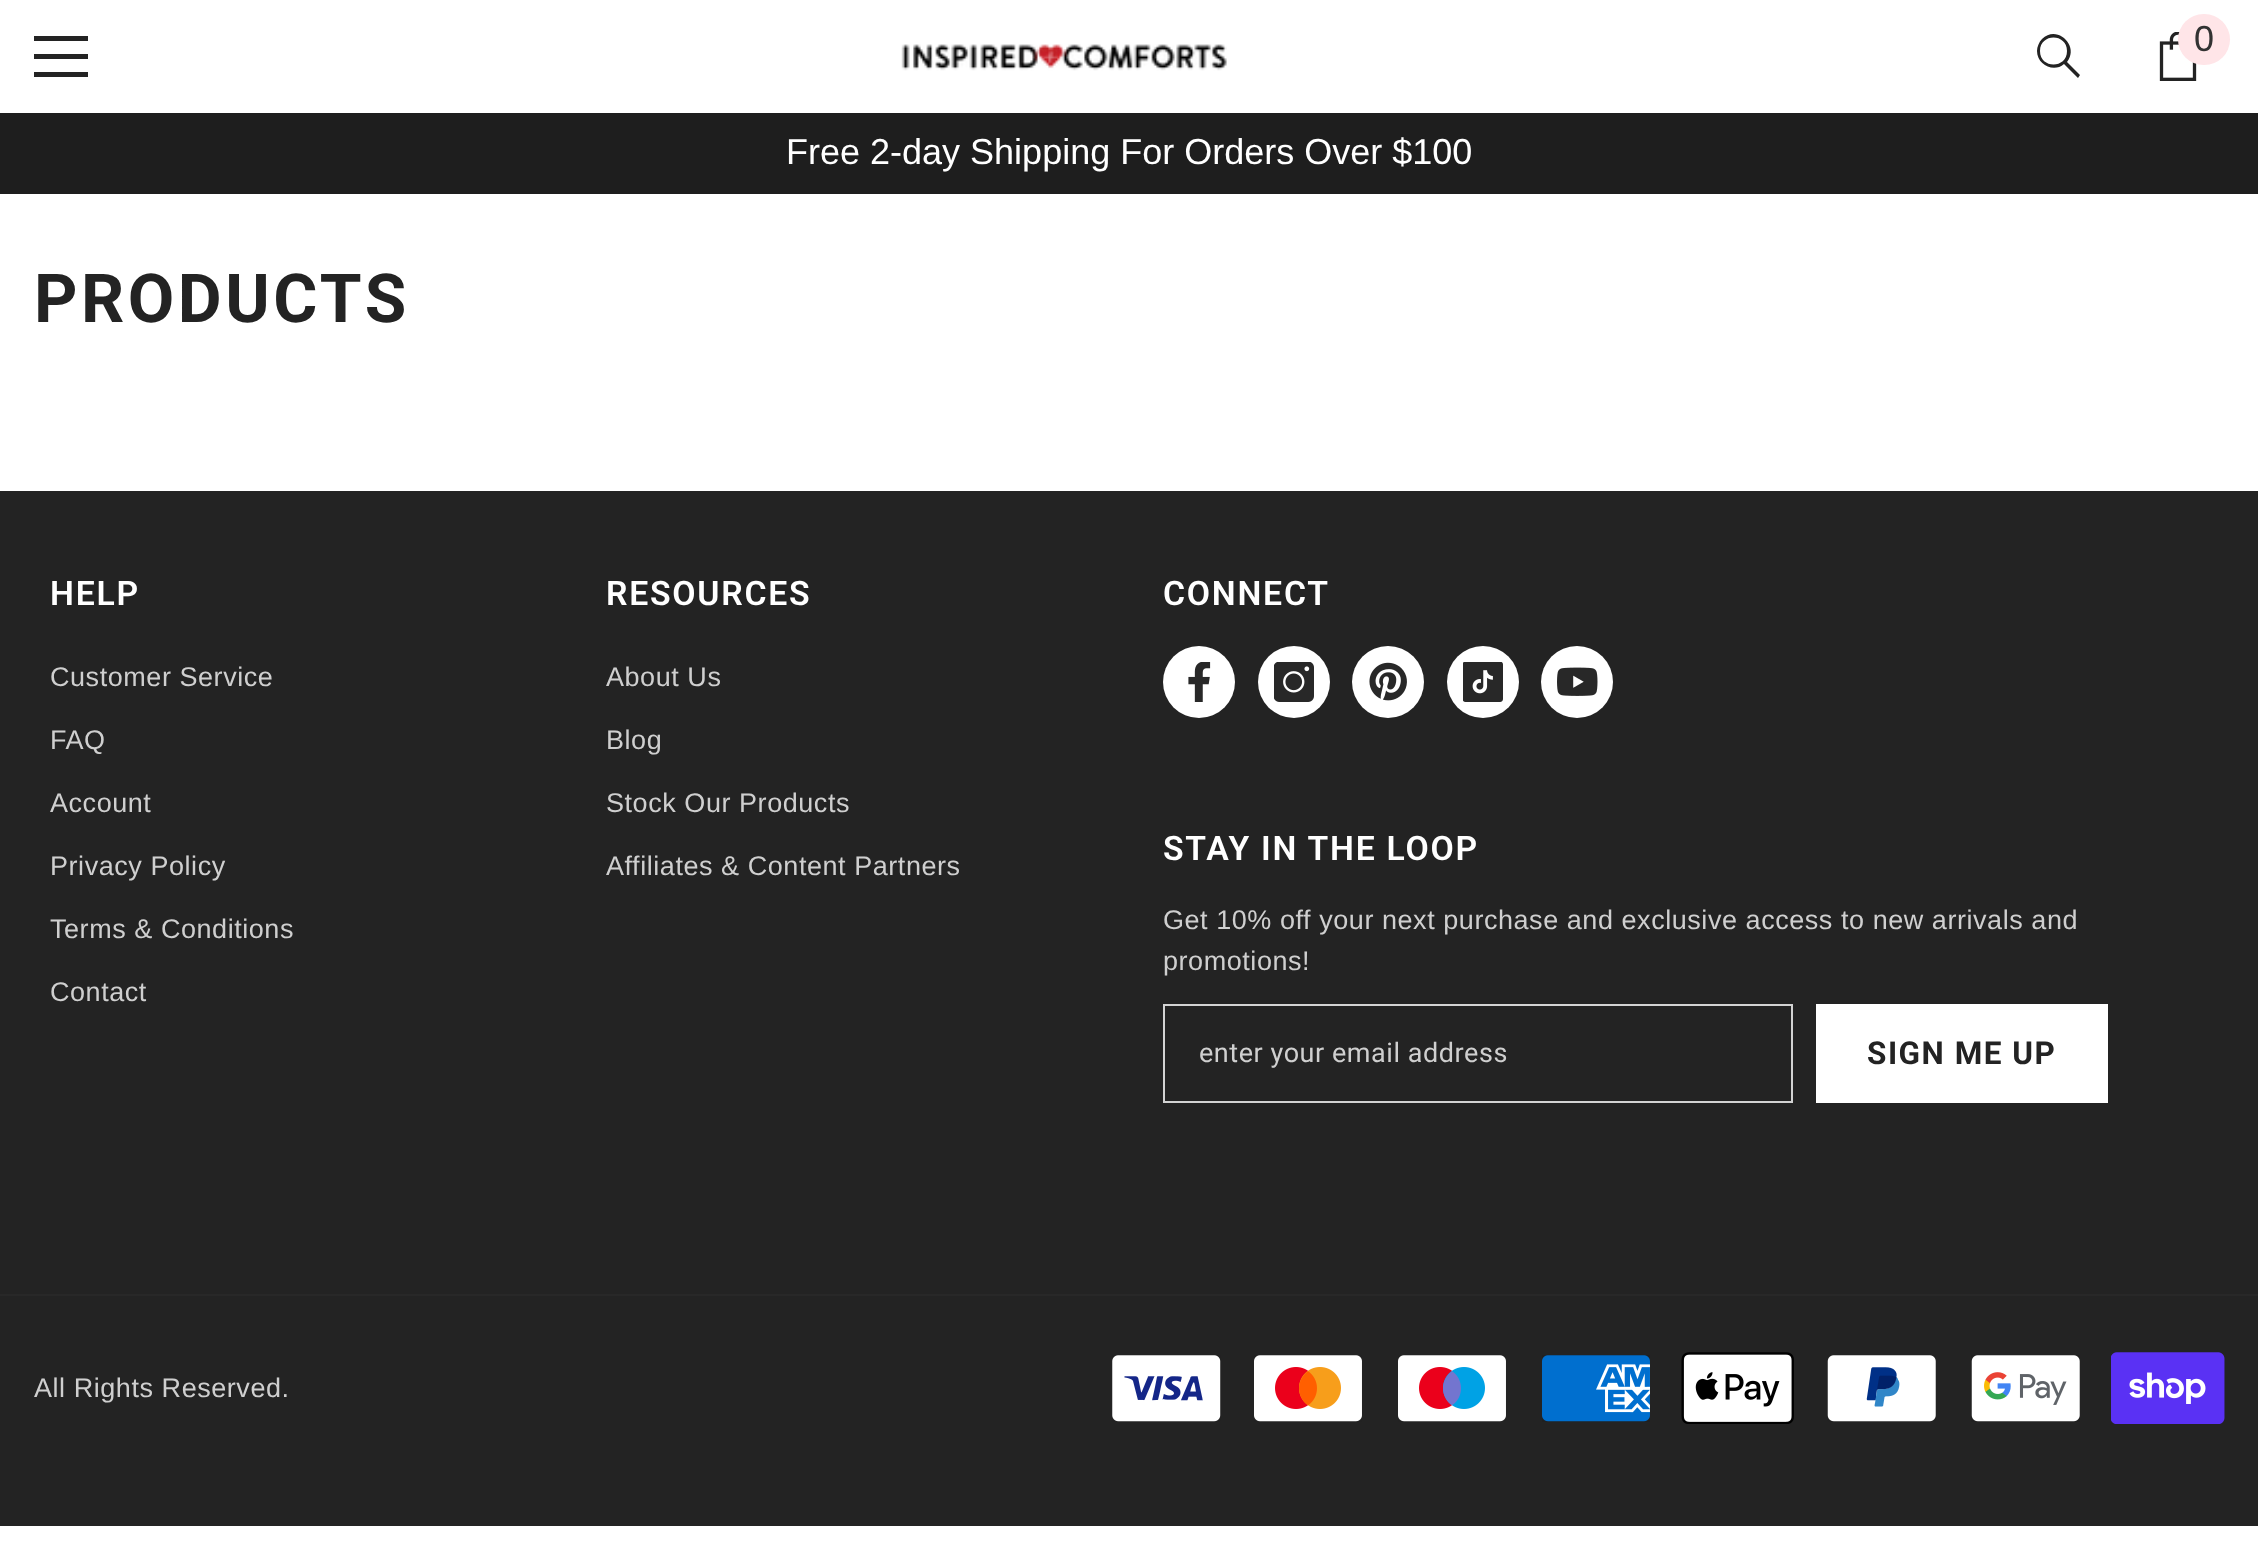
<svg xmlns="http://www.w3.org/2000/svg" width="2258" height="1544">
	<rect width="100%" height="100%" fill="#FFFFFF" />
	<rect x="34" y="54" width="54" height="5" fill="#232323" />
	<rect x="34" y="36" width="54" height="5" fill="#232323" />
	<rect x="34" y="72" width="54" height="5" fill="#232323" />
	<image x="901" y="44" width="326" height="27" href="assets/img1.png" />
	<path d="M2037 51C2037 65 2054 73 2064 64L2078 78L2080 75L2067 62C2080 46 2057 24 2042 39C2039 42 2037 47 2037 51ZM2040 51C2040 33 2067 33 2067 51C2067 69 2040 69 2040 51Z" fill="#232323" />
	<image x="2159" y="32" width="38" height="49" href="assets/img2.png" />
	<rect x="2178" y="14" width="52" height="51" rx="25.5" fill="#FFE5E8" />
	<text x="2194" y="51" font-family="Liberation Sans" font-size="36" fill="#323232">0</text>
	<rect x="0" y="113" width="2258" height="81" fill="#1E1E1E" />
	<text x="786" y="164" font-family="Liberation Sans" font-size="36" fill="#FFFFFF">Free 2-day Shipping For Orders Over $100</text>
	<text x="34" y="322" font-family="Roboto" font-size="67.5" font-weight="700" letter-spacing="3.5" fill="#232323">PRODUCTS</text>
	<rect x="0" y="491" width="2258" height="803" fill="#232323" />
	<text x="50" y="605" font-family="Roboto" font-size="33.75" font-weight="600" letter-spacing="1.75" fill="#FFFFFF">HELP</text>
	<g font-family="Liberation Sans" font-size="27" letter-spacing="0.55" fill="#CFCFCF">
		<text x="50" y="686">Customer Service</text>
		<text x="50" y="749">FAQ</text>
		<text x="50" y="812">Account</text>
		<text x="50" y="875">Privacy Policy</text>
		<text x="50" y="938">Terms &amp; Conditions</text>
		<text x="50" y="1001">Contact</text>
	</g>
	<text x="606" y="605" font-family="Roboto" font-size="33.75" font-weight="600" letter-spacing="1.75" fill="#FFFFFF">RESOURCES</text>
	<g font-family="Liberation Sans" font-size="27" letter-spacing="0.55" fill="#CFCFCF">
		<text x="606" y="686">About Us</text>
		<text x="606" y="749">Blog</text>
		<text x="606" y="812">Stock Our Products</text>
		<text x="606" y="875">Affiliates &amp; Content Partners</text>
	</g>
	<text x="1163" y="605" font-family="Roboto" font-size="33.75" font-weight="600" letter-spacing="1.75" fill="#FFFFFF">CONNECT</text>
	<circle cx="1199" cy="682" r="36" fill="#FFFFFF" />
	<image x="1188" y="662" width="23" height="40" href="assets/img3.png" />
	<circle cx="1294" cy="682" r="36" fill="#FFFFFF" />
	<image x="1274" y="662" width="40" height="40" href="assets/img4.png" />
	<circle cx="1388" cy="682" r="36" fill="#FFFFFF" />
	<image x="1369" y="662" width="38" height="39" href="assets/img5.png" />
	<circle cx="1483" cy="682" r="36" fill="#FFFFFF" />
	<image x="1463" y="662" width="40" height="40" href="assets/img6.png" />
	<circle cx="1577" cy="682" r="36" fill="#FFFFFF" />
	<image x="1557" y="667" width="41" height="29" href="assets/img7.png" />
	<text x="1163" y="860" font-family="Roboto" font-size="33.75" font-weight="600" letter-spacing="1.75" fill="#FFFFFF">STAY IN THE LOOP</text>
	<g font-family="Liberation Sans" font-size="27" letter-spacing="0.55" fill="#CFCFCF">
		<text x="1163" y="929">Get 10% off your next purchase and exclusive access to new arrivals and</text>
		<text x="1163" y="970">promotions!</text>
	</g>
	<rect x="1164" y="1005" width="628" height="97" fill="none" stroke="#D3D3D3" stroke-width="2" />
	<text x="1199" y="1062" font-family="Roboto" font-size="27" letter-spacing="0.55" fill="#CFCFCF">enter your email address</text>
	<rect x="1816" y="1004" width="292" height="99" fill="#FFFFFF" />
	<text x="1867" y="1064" font-family="Roboto" font-size="31.5" font-weight="700" letter-spacing="1.5" fill="#232323">SIGN ME UP</text>
	<rect x="0" y="1296" width="2258" height="230" fill="#232323" />
	<rect x="0" y="1294" width="2258" height="2" fill="#282828" />
	<text x="34" y="1397" font-family="Liberation Sans" font-size="27" letter-spacing="0.55" fill="#CFCFCF">All Rights Reserved.</text>
	<image x="1112" y="1355" width="109" height="67" href="assets/img8.png" />
	<image x="1254" y="1355" width="108" height="67" href="assets/img9.png" />
	<image x="1398" y="1355" width="108" height="67" href="assets/img10.png" />
	<image x="1542" y="1355" width="108" height="67" href="assets/img11.png" />
	<image x="1681" y="1352" width="113" height="72" href="assets/img12.png" />
	<image x="1827" y="1355" width="109" height="67" href="assets/img13.png" />
	<image x="1971" y="1355" width="109" height="67" href="assets/img14.png" />
	<image x="2111" y="1352" width="114" height="72" href="assets/img15.png" />
</svg>
